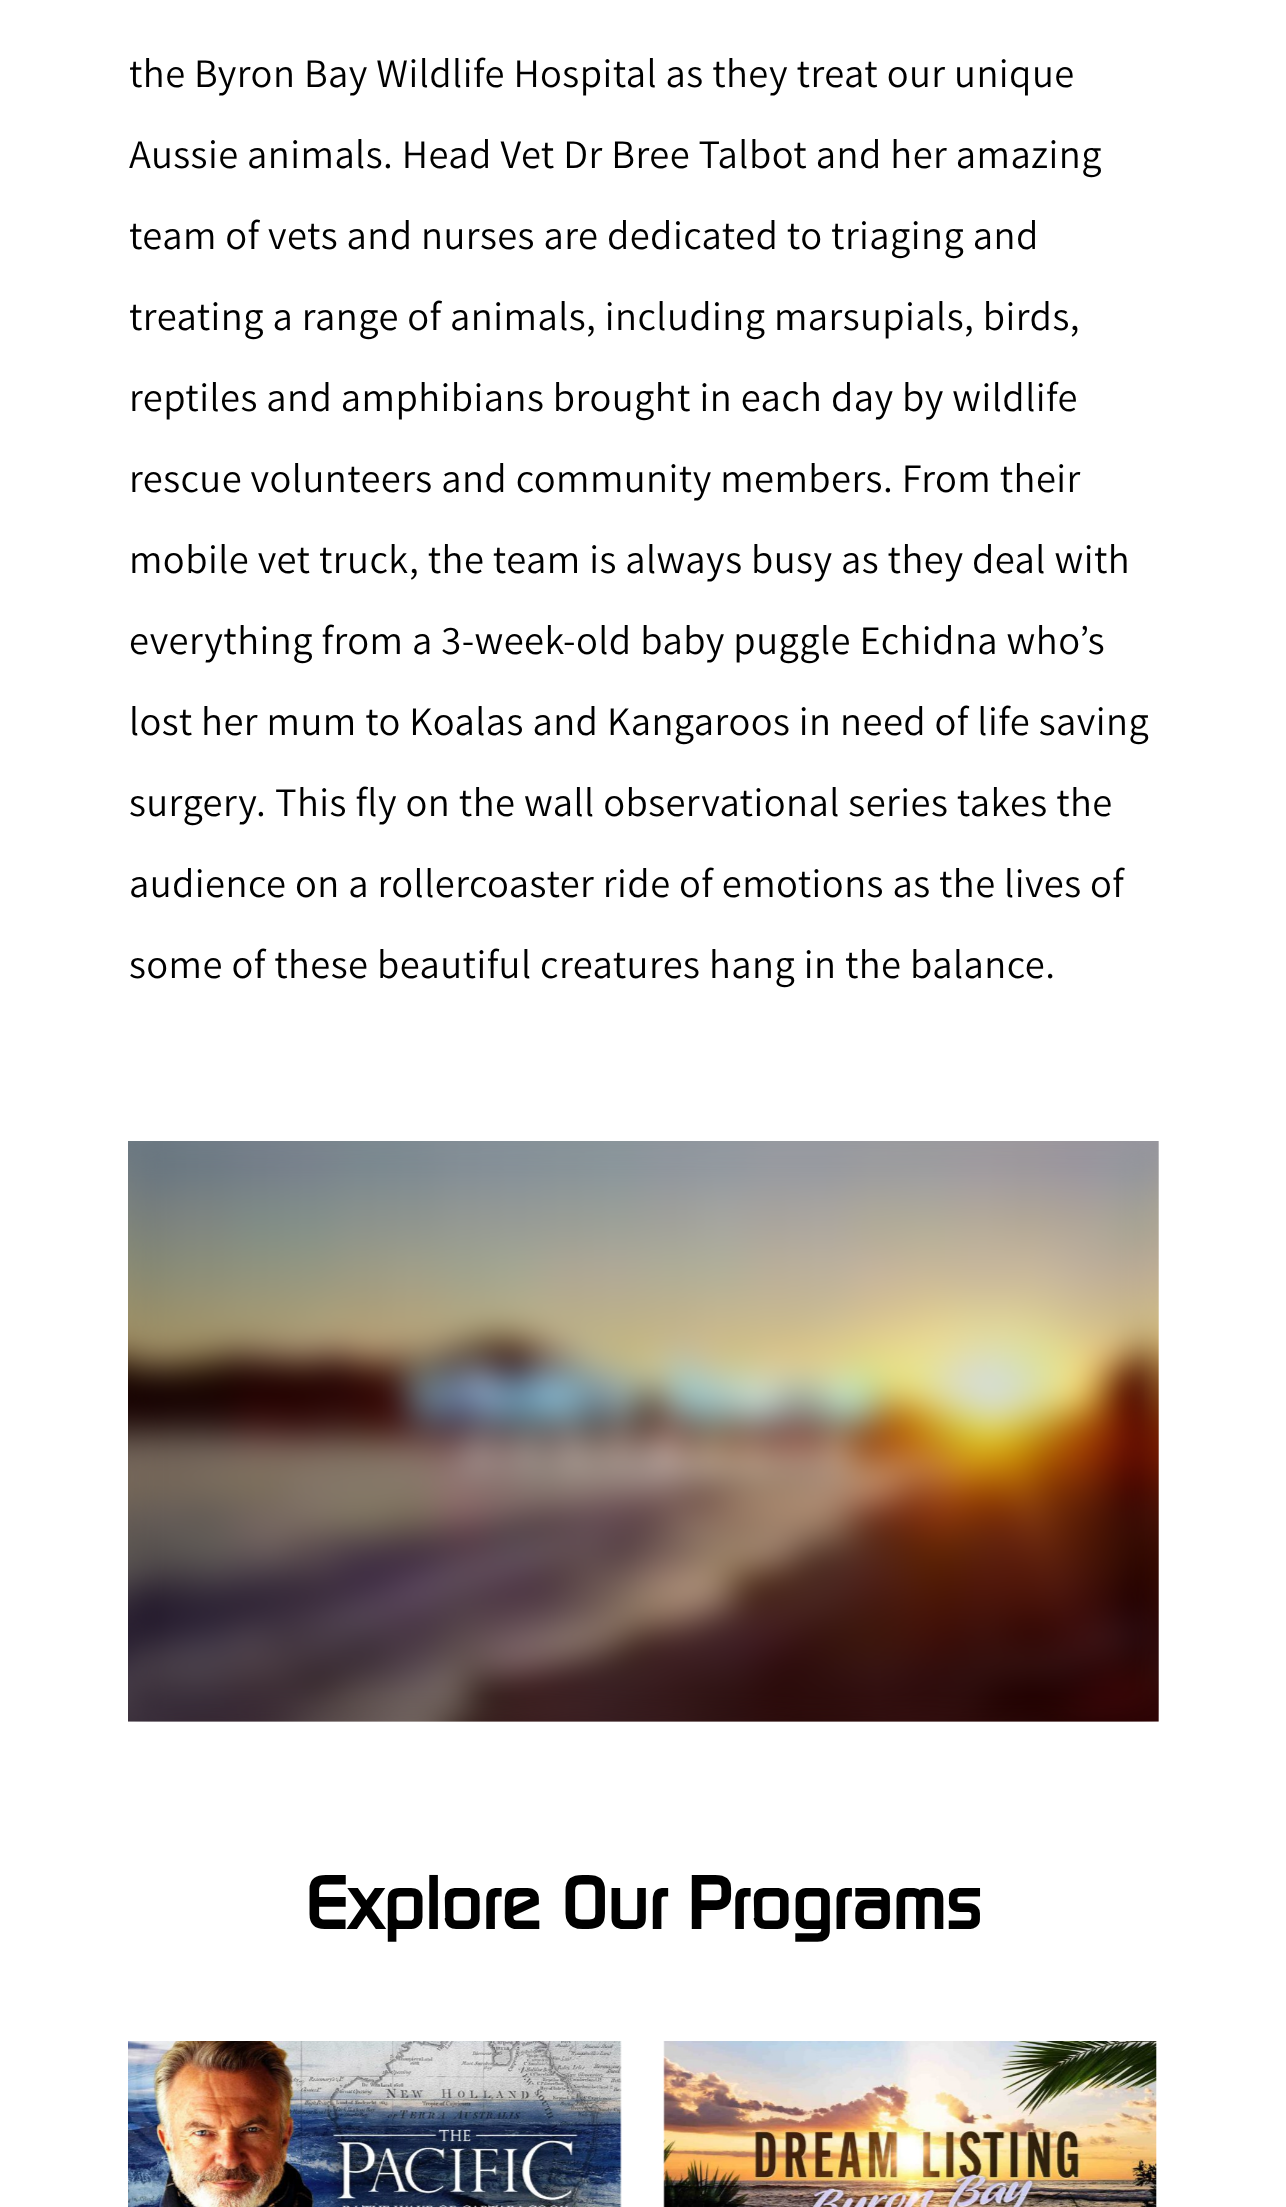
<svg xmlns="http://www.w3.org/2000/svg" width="1286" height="2207">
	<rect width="100%" height="100%" fill="#FFFFFF" />
	<g font-family="Assistant" font-size="40.5" letter-spacing="0.45" fill="#000000">
		<text x="129" y="87">the Byron Bay Wildlife Hospital as they treat our unique</text>
		<text x="129" y="168">Aussie animals. Head Vet Dr Bree Talbot and her amazing</text>
		<text x="129" y="249">team of vets and nurses are dedicated to triaging and</text>
		<text x="129" y="330">treating a range of animals, including marsupials, birds,</text>
		<text x="129" y="411">reptiles and amphibians brought in each day by wildlife</text>
		<text x="129" y="492">rescue volunteers and community members. From their</text>
		<text x="129" y="573">mobile vet truck, the team is always busy as they deal with</text>
		<text x="129" y="654">everything from a 3-week-old baby puggle Echidna who’s</text>
		<text x="129" y="735">lost her mum to Koalas and Kangaroos in need of life saving</text>
		<text x="129" y="816">surgery. This fly on the wall observational series takes the</text>
		<text x="129" y="897">audience on a rollercoaster ride of emotions as the lives of</text>
		<text x="129" y="978">some of these beautiful creatures hang in the balance.</text>
	</g>
	<image x="128" y="1141" width="1031" height="581" href="assets/img1.png" />
	<text x="305" y="1929" font-family="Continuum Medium" font-size="74.25" font-weight="700" letter-spacing="-0.25" fill="#000000">Explore Our Programs</text>
	<image x="128" y="2041" width="494" height="166" href="assets/img2.png" />
	<image x="663" y="2041" width="494" height="166" href="assets/img3.png" />
</svg>
